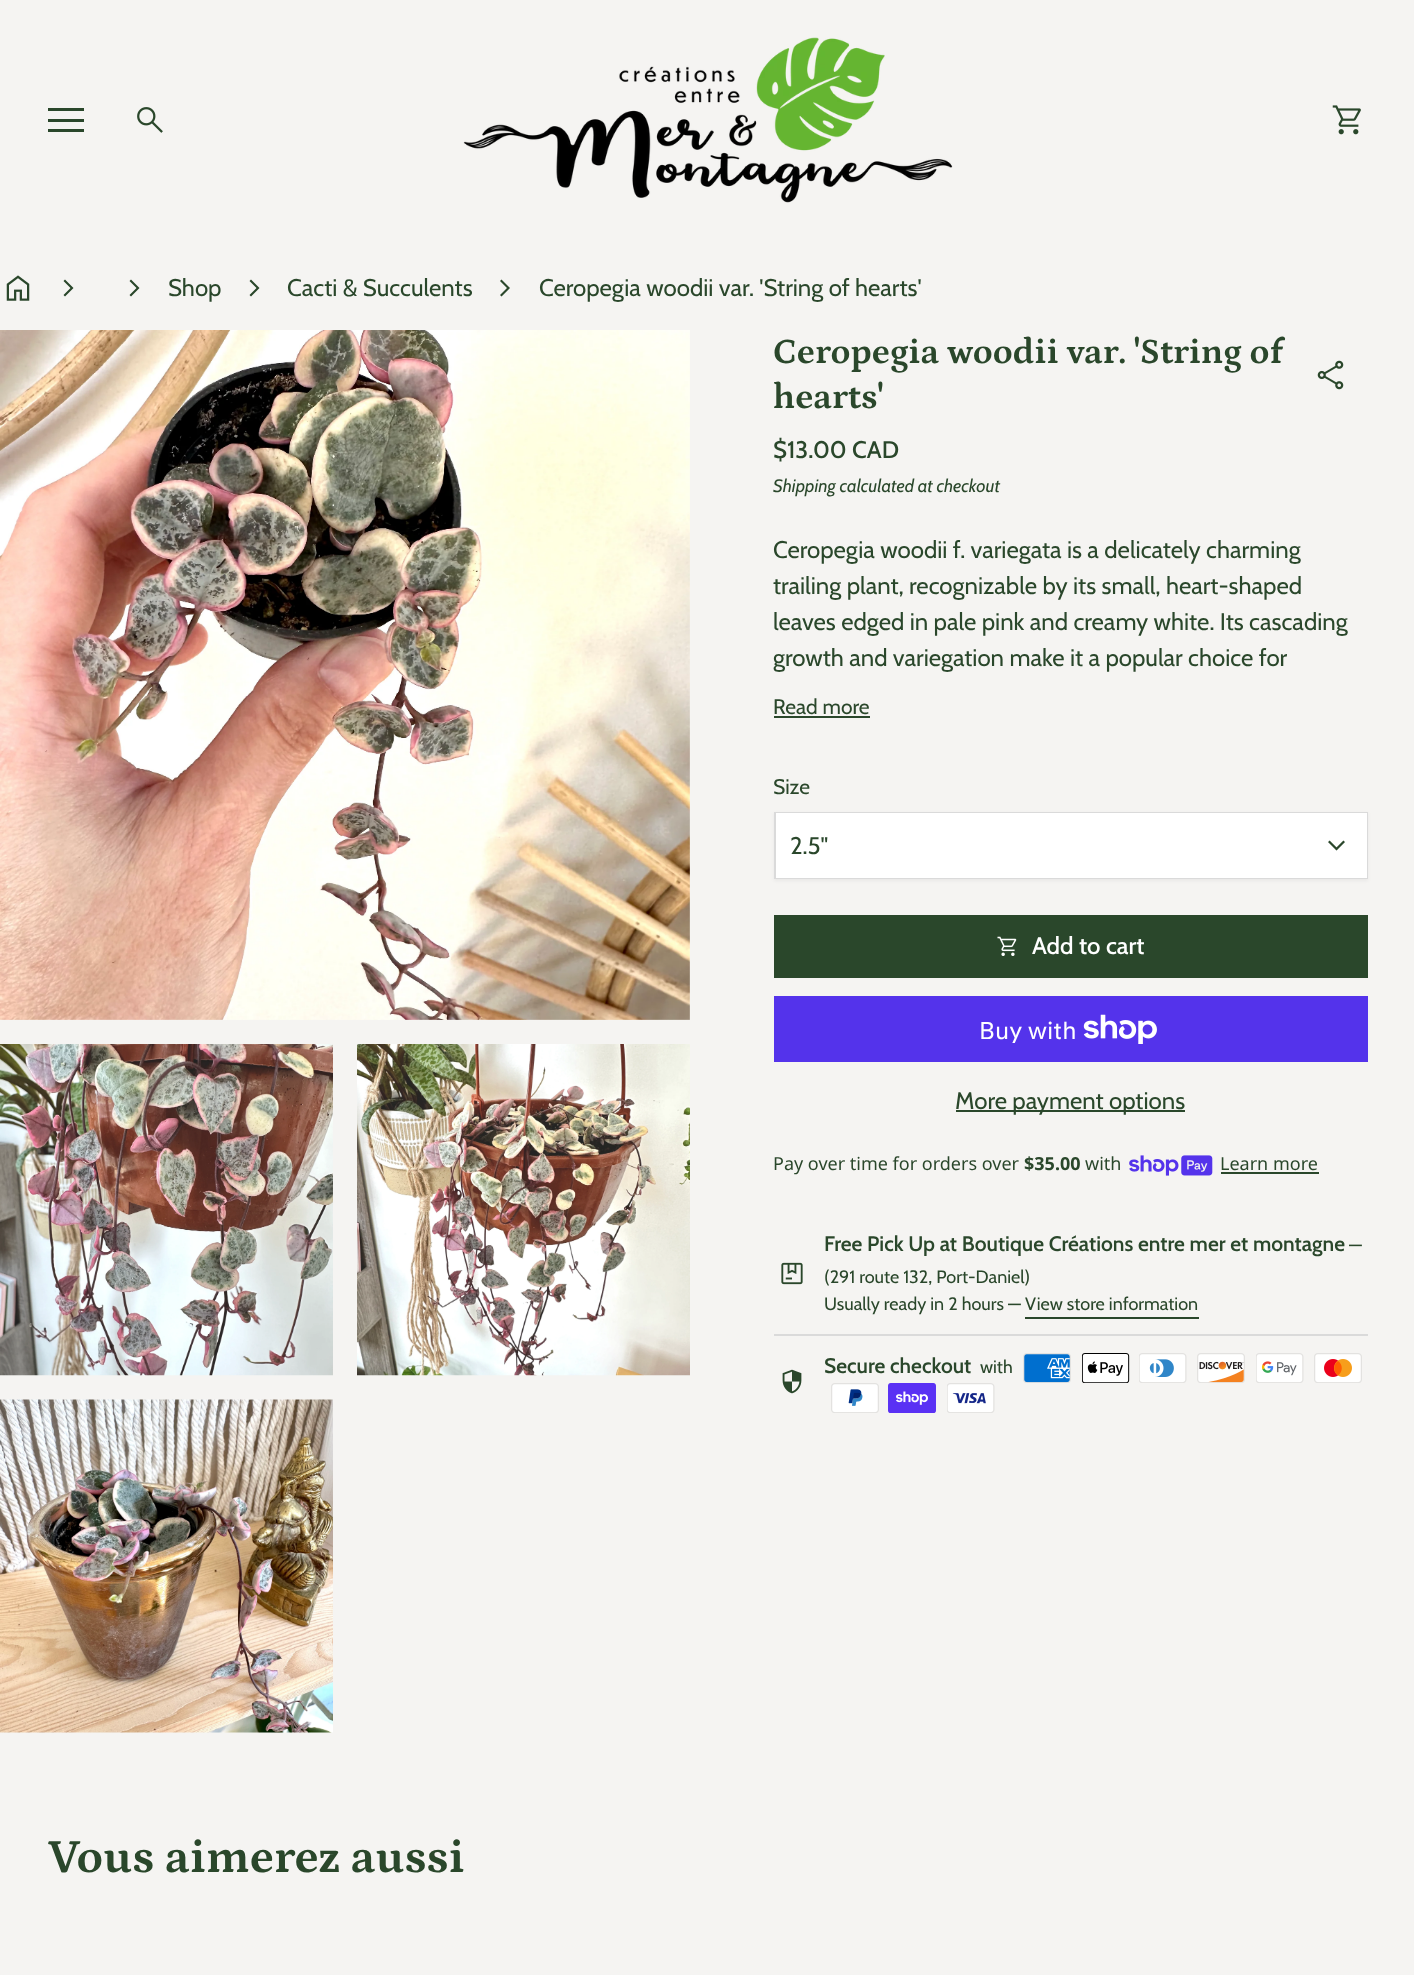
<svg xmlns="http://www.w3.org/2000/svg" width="1414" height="1975">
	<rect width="100%" height="100%" fill="#F5F4F2" />
	<rect x="48" y="108" width="36" height="3" fill="#2A472B" />
	<rect x="48" y="119" width="36" height="3" fill="#2A472B" />
	<rect x="48" y="129" width="36" height="3" fill="#2A472B" />
	<image x="137" y="107" width="26" height="26" href="assets/img1.png" />
	<image x="463" y="37" width="490" height="166" href="assets/img2.png" />
	<image x="1332" y="105" width="29" height="30" href="assets/img3.png" />
	<image x="6" y="275" width="24" height="26" href="assets/img4.png" />
	<path d="M70.5 288L63.5 281L65 279.5L73.5 288L65 296.5L63.5 295Z" fill="#2A472B" />
	<path d="M136.5 288L129.5 281L131 279.5L139.5 288L131 296.5L129.5 295Z" fill="#2A472B" />
	<text x="168" y="296" font-family="Cabin" font-size="24" fill="#2A472B">Shop</text>
	<path d="M256.5 288L249.5 281L251 279.5L259.5 288L251 296.5L249.5 295Z" fill="#2A472B" />
	<text x="287" y="296" font-family="Cabin" font-size="24" fill="#2A472B">Cacti &amp; Succulents</text>
	<path d="M507 288L500 281L501.5 279.5L510 288L501.5 296.5L500 295Z" fill="#2A472B" />
	<text x="539" y="296" font-family="Cabin" font-size="24" fill="#2A472B">Ceropegia woodii var. 'String of hearts'</text>
	<image x="0" y="330" width="690" height="690" href="assets/img5.png" />
	<image x="0" y="1044" width="333" height="332" href="assets/img6.png" />
	<image x="357" y="1044" width="333" height="332" href="assets/img7.png" />
	<image x="0" y="1399" width="333" height="334" href="assets/img8.png" />
	<g font-family="Petrona" font-size="36" font-weight="700" fill="#2A472B">
		<text x="773" y="363">Ceropegia woodii var. 'String of</text>
		<text x="773" y="408">hearts'</text>
	</g>
	<image x="1317" y="360" width="27" height="30" href="assets/img9.png" />
	<text x="773" y="458" font-family="Cabin" font-size="24" font-weight="500" fill="#2A472B">$13.00 CAD</text>
	<text x="773" y="492" font-family="Cabin" font-size="18" font-style="italic" fill="#2A472B">Shipping calculated at checkout</text>
	<g font-family="Cabin" font-size="24" fill="#2A472B">
		<text x="773" y="558">Ceropegia woodii f. variegata is a delicately charming</text>
		<text x="773" y="594">trailing plant, recognizable by its small, heart-shaped</text>
		<text x="773" y="630">leaves edged in pale pink and creamy white. Its cascading</text>
		<text x="773" y="666">growth and variegation make it a popular choice for</text>
	</g>
	<text x="773" y="714" font-family="Cabin" font-size="21" fill="#2A472B">Read more</text>
	<rect x="774" y="716" width="96" height="2" fill="#2A472B" />
	<text x="773" y="794" font-family="Cabin" font-size="21" fill="#2A472B">Size</text>
	<rect x="774" y="813" width="594" height="68" fill="#101828" fill-opacity="0.05" filter="blur(1.5px)" />
	<rect x="775" y="813" width="592" height="65" fill="none" stroke="#DADADA" stroke-width="2" />
	<rect x="776" y="813" width="591" height="65" fill="#FFFFFF" />
	<text x="790" y="854" font-family="Cabin" font-size="24" fill="#2A472B">2.5"</text>
	<image x="1328" y="840" width="17" height="11" href="assets/img10.png" />
	<rect x="774" y="915" width="594" height="63" fill="#2A472B" />
	<image x="997" y="936" width="20" height="20" href="assets/img11.png" />
	<text x="1032" y="954" font-family="Cabin" font-size="24" font-weight="500" fill="#FFFFFF">Add to cart</text>
	<rect x="774" y="996" width="594" height="66" fill="#5433EB" />
	<text x="979" y="1039" font-family="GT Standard" font-size="24" fill="#FFFFFF">Buy with</text>
	<image x="1083" y="1014" width="74" height="30" href="assets/img12.png" />
	<rect x="956" y="1110" width="229" height="2" fill="#2A472B" />
	<text x="955" y="1109" font-family="Cabin" font-size="24" fill="#2A472B">More payment options</text>
	<text x="773" y="1170" font-family="Noto Sans" font-size="18" fill="#2A472B">Pay over time for orders over</text>
	<text x="1024" y="1170" font-family="Noto Sans" font-size="18" font-weight="700" fill="#2A472B">$35.00</text>
	<text x="1085" y="1170" font-family="Noto Sans" font-size="18" fill="#2A472B">with</text>
	<image x="1129" y="1155" width="84" height="21" href="assets/img13.png" />
	<text x="1220" y="1170" font-family="Noto Sans" font-size="18" fill="#2A472B">Learn more</text>
	<rect x="1221" y="1172" width="98" height="2" fill="#2A472B" />
	<rect x="774" y="1334" width="594" height="2" fill="#DADADA" />
	<image x="781" y="1262" width="22" height="23" href="assets/img14.png" />
	<text x="824" y="1251" font-family="Cabin" font-size="21" font-weight="600" fill="#2A472B">Free Pick Up at Boutique Créations entre mer et montagne</text>
	<g font-family="Cabin" font-size="18" fill="#2A472B">
		<text x="1349" y="1251">—</text>
		<text x="824" y="1283">(291 route 132, Port-Daniel)</text>
		<text x="824" y="1310">Usually ready in 2 hours — View store information</text>
	</g>
	<rect x="1025" y="1317" width="174" height="2" fill="#2A472B" />
	<text x="824" y="1373" font-family="Cabin" font-size="21" font-weight="600" fill="#2A472B">Secure checkout</text>
	<text x="980" y="1373" font-family="Cabin" font-size="18" fill="#2A472B">with</text>
	<image x="1023" y="1353" width="48" height="30" href="assets/img15.png" />
	<image x="1082" y="1353" width="48" height="30" href="assets/img16.png" />
	<image x="1139" y="1353" width="48" height="30" href="assets/img17.png" />
	<image x="1197" y="1353" width="48" height="30" href="assets/img18.png" />
	<image x="1256" y="1353" width="48" height="30" href="assets/img19.png" />
	<image x="1314" y="1353" width="48" height="30" href="assets/img20.png" />
	<image x="831" y="1383" width="48" height="30" href="assets/img21.png" />
	<image x="888" y="1383" width="48" height="30" href="assets/img22.png" />
	<image x="947" y="1383" width="48" height="30" href="assets/img23.png" />
	<image x="782" y="1369" width="20" height="25" href="assets/img24.png" />
	<text x="48" y="1872" font-family="Petrona" font-size="48" font-weight="700" fill="#2A472B">Vous aimerez aussi</text>
</svg>
